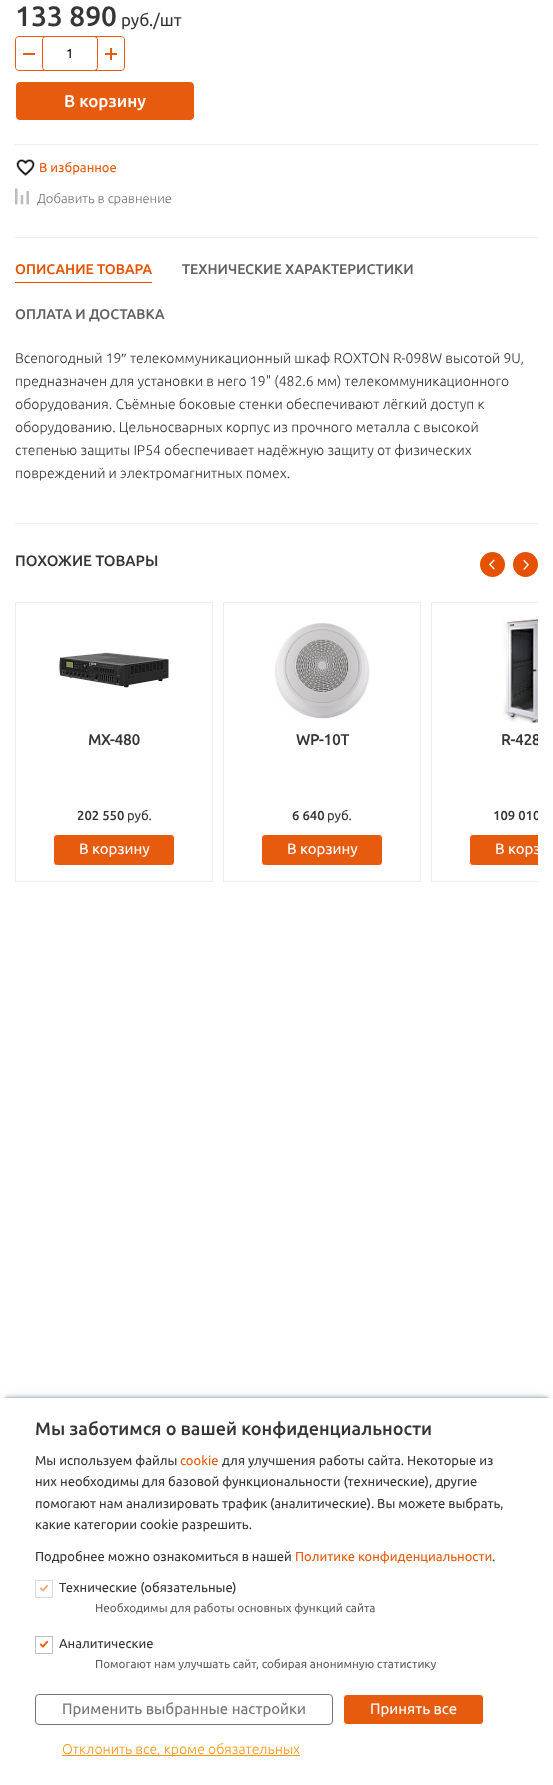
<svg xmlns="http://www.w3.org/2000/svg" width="553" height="1785">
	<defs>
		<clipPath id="clip1"><rect x="15" y="602" width="523" height="370" /></clipPath>
		<clipPath id="clip2"><rect x="442" y="728" width="96" height="25" /></clipPath>
		<clipPath id="clip3"><rect x="432" y="618" width="106" height="248" /></clipPath>
	</defs>
	<rect width="100%" height="100%" fill="#FFFFFF" />
	<rect x="15" y="237" width="523" height="1" fill="#EEEEEE" />
	<rect x="15" y="144" width="523" height="1" fill="#EEEEEE" />
	<text x="15" y="26" font-family="Ubuntu" font-size="28" font-weight="500" fill="#363636">133 890</text>
	<text x="121" y="26" font-family="Ubuntu" font-size="17" fill="#363636">руб./шт</text>
	<rect x="15.5" y="36.5" width="109" height="34" rx="3.5" fill="none" stroke="#E75B0E" />
	<path d="M19 37H44V70H19C17.5 70 16 68.5 16 67V40C16 38.5 17.5 37 19 37Z" fill="#FFFFFF" />
	<rect x="23" y="53" width="12" height="2" fill="#E75B0E" />
	<path d="M96 37H121C122.5 37 124 38.5 124 40V67C124 68.5 122.5 70 121 70H96Z" fill="#FFFFFF" />
	<rect x="105" y="53" width="12" height="2" fill="#E75B0E" />
	<rect x="110" y="48" width="2" height="12" fill="#E75B0E" />
	<path d="M46 37C44 37 43 38 43 40V67C43 69 44 70 46 70H43C43 69 42 68 42 67V40C42 39 43 38 43 37ZM97 37C97 38 98 39 98 40V67C98 68 97 69 97 70H94C96 70 97 69 97 67V40C97 38 96 37 94 37Z" fill="#E75B0E" fill-rule="evenodd" />
	<text x="66" y="58" font-family="Ubuntu" font-size="13" fill="#000000">1</text>
	<rect x="15.5" y="81.5" width="179" height="39" rx="4.5" fill="#E75B0E" stroke="#FFFFFF" />
	<text x="64" y="107" font-family="Ubuntu" font-size="17" font-weight="500" fill="#FFFFFF">В корзину</text>
	<image x="16" y="159" width="19" height="17" href="assets/img1.png" />
	<text x="39" y="172" font-family="Ubuntu" font-size="13" fill="#E75B0E">В избранное</text>
	<image x="15" y="188" width="14" height="17" href="assets/img2.png" />
	<text x="37" y="203" font-family="Ubuntu" font-size="13" font-weight="300" fill="#757575">Добавить в сравнение</text>
	<rect x="15" y="523" width="523" height="1" fill="#EEEEEE" />
	<rect x="15" y="282" width="137" height="1" fill="#E65100" />
	<text x="15" y="274" font-family="Ubuntu" font-size="14" font-weight="500" fill="#E65100">ОПИСАНИЕ ТОВАРА</text>
	<g font-family="Ubuntu" font-size="14" font-weight="500" fill="#616161">
		<text x="182" y="274">ТЕХНИЧЕСКИЕ ХАРАКТЕРИСТИКИ</text>
		<text x="15" y="319">ОПЛАТА И ДОСТАВКА</text>
	</g>
	<text x="15" y="363" font-family="Ubuntu" font-size="14" font-weight="300" fill="#363636">Всепогодный 19</text>
	<text x="121" y="363" font-family="Liberation Serif" font-size="14" fill="#363636">″</text>
	<g font-family="Ubuntu" font-size="14" font-weight="300" fill="#363636">
		<text x="130" y="363">телекоммуникационный шкаф ROXTON R-098W высотой 9U,</text>
		<text x="15" y="386">предназначен для установки в него 19" (482.6 мм) телекоммуникационного</text>
		<text x="15" y="409">оборудования. Съёмные боковые стенки обеспечивают лёгкий доступ к</text>
		<text x="15" y="432">оборудованию. Цельносварных корпус из прочного металла с высокой</text>
		<text x="15" y="455">степенью защиты IP54 обеспечивает надёжную защиту от физических</text>
		<text x="15" y="478">повреждений и электромагнитных помех.</text>
	</g>
	<text x="15" y="566" font-family="Ubuntu" font-size="15" font-weight="500" fill="#363636">ПОХОЖИЕ ТОВАРЫ</text>
	<circle cx="492.5" cy="564.5" r="12.5" fill="#E65100" />
	<image x="489" y="559" width="6" height="11" href="assets/img3.png" />
	<circle cx="525.5" cy="564.5" r="12.5" fill="#E65100" />
	<image x="523" y="559" width="6" height="11" href="assets/img4.png" />
	<rect x="15.5" y="602.5" width="197" height="279" fill="none" stroke="#EEEEEE" />
	<image x="59" y="652" width="110" height="36" href="assets/img5.png" />
	<text x="88" y="745" font-family="Ubuntu" font-size="15" font-weight="700" fill="#363636">MX-480</text>
	<text x="77" y="820" font-family="Ubuntu" font-size="13" font-weight="500" fill="#363636">202 550</text>
	<text x="127" y="820" font-family="Ubuntu" font-size="13" fill="#363636">руб.</text>
	<rect x="53.5" y="834.5" width="121" height="31" rx="3.5" fill="#E75B0E" stroke="#FFFFFF" />
	<text x="79" y="854" font-family="Ubuntu" font-size="15" fill="#FFFFFF">В корзину</text>
	<rect x="223.5" y="602.5" width="197" height="279" fill="none" stroke="#EEEEEE" />
	<image x="275" y="623" width="95" height="96" href="assets/img6.png" />
	<text x="296" y="745" font-family="Ubuntu" font-size="15" font-weight="700" fill="#363636">WP-10T</text>
	<text x="292" y="820" font-family="Ubuntu" font-size="13" font-weight="500" fill="#363636">6 640</text>
	<text x="327" y="820" font-family="Ubuntu" font-size="13" fill="#363636">руб.</text>
	<rect x="261.5" y="834.5" width="121" height="31" rx="3.5" fill="#E75B0E" stroke="#FFFFFF" />
	<text x="287" y="854" font-family="Ubuntu" font-size="15" fill="#FFFFFF">В корзину</text>
	<g clip-path="url(#clip1)">
		<rect x="431.5" y="602.5" width="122" height="279" fill="none" stroke="#EEEEEE" />
	</g>
	<image x="502" y="618" width="36" height="105" href="assets/img7.png" />
	<g clip-path="url(#clip2)">
		<text x="501" y="745" font-family="Ubuntu" font-size="15" font-weight="700" fill="#363636">R-428</text>
	</g>
	<g clip-path="url(#clip3)">
		<text x="493" y="820" font-family="Ubuntu" font-size="13" font-weight="500" fill="#363636">109 010</text>
	</g>
	<path d="M473 834H538V866H473C471 866 469 864 469 862V838C469 836 471 834 473 834Z" fill="#E75B0E" />
	<g clip-path="url(#clip3)">
		<rect x="469.5" y="834.5" width="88" height="31" rx="3.5" fill="none" stroke="#FFFFFF" />
		<text x="495" y="854" font-family="Ubuntu" font-size="15" fill="#FFFFFF">В корз</text>
	</g>
	<rect x="0" y="1402" width="553" height="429" rx="16" fill="#000000" fill-opacity="0.08" filter="blur(10px)" />
	<rect x="5" y="1398" width="543" height="377" fill="#223C50" fill-opacity="0.6" filter="blur(2.5px)" />
	<rect x="0" y="1398" width="553" height="387" fill="#FFFFFF" />
	<text x="35" y="1435" font-family="Ubuntu" font-size="18" font-weight="500" fill="#363636">Мы заботимся о вашей конфиденциальности</text>
	<text x="35" y="1465" font-family="Ubuntu" font-size="13" fill="#363636">Мы используем файлы</text>
	<text x="180" y="1465" font-family="Ubuntu" font-size="13" fill="#E75B0E">cookie</text>
	<g font-family="Ubuntu" font-size="13" fill="#363636">
		<text x="222" y="1465">для улучшения работы сайта. Некоторые из</text>
		<text x="35" y="1486">них необходимы для базовой функциональности (технические), другие</text>
		<text x="35" y="1508">помогают нам анализировать трафик (аналитические). Вы можете выбрать,</text>
		<text x="35" y="1529">какие категории cookie разрешить.</text>
		<text x="35" y="1561">Подробнее можно ознакомиться в нашей</text>
	</g>
	<text x="295" y="1561" font-family="Ubuntu" font-size="13" fill="#E75B0E">Политике конфиденциальности</text>
	<text x="492" y="1561" font-family="Ubuntu" font-size="13" fill="#363636">.</text>
	<rect x="35.5" y="1580.5" width="17" height="17" fill="none" stroke="#DCDCDC" />
	<image x="39" y="1584" width="10" height="8" href="assets/img8.png" />
	<text x="59" y="1592" font-family="Ubuntu" font-size="13" fill="#363636">Технические (обязательные)</text>
	<text x="95" y="1612" font-family="Ubuntu" font-size="11.7" fill="#616161">Необходимы для работы основных функций сайта</text>
	<rect x="35.5" y="1636.5" width="17" height="17" fill="none" stroke="#BFBFBF" />
	<image x="39" y="1640" width="10" height="8" href="assets/img9.png" />
	<text x="59" y="1648" font-family="Ubuntu" font-size="13" fill="#363636">Аналитические</text>
	<text x="95" y="1668" font-family="Ubuntu" font-size="11.7" fill="#616161">Помогают нам улучшать сайт, собирая анонимную статистику</text>
	<rect x="35.5" y="1694.5" width="297" height="30" rx="3.5" fill="none" stroke="#757575" />
	<text x="62" y="1714" font-family="Ubuntu" font-size="15" fill="#757575">Применить выбранные настройки</text>
	<rect x="343.5" y="1694.5" width="140" height="30" rx="3.5" fill="#E75B0E" stroke="#FFFFFF" />
	<text x="370" y="1714" font-family="Ubuntu" font-size="15" fill="#FFFFFF">Принять все</text>
	<rect x="62" y="1755" width="238" height="1" fill="#FD9615" />
	<text x="62" y="1754" font-family="Ubuntu" font-size="14" font-weight="300" fill="#FD9615">Отклонить все, кроме обязательных</text>
</svg>
